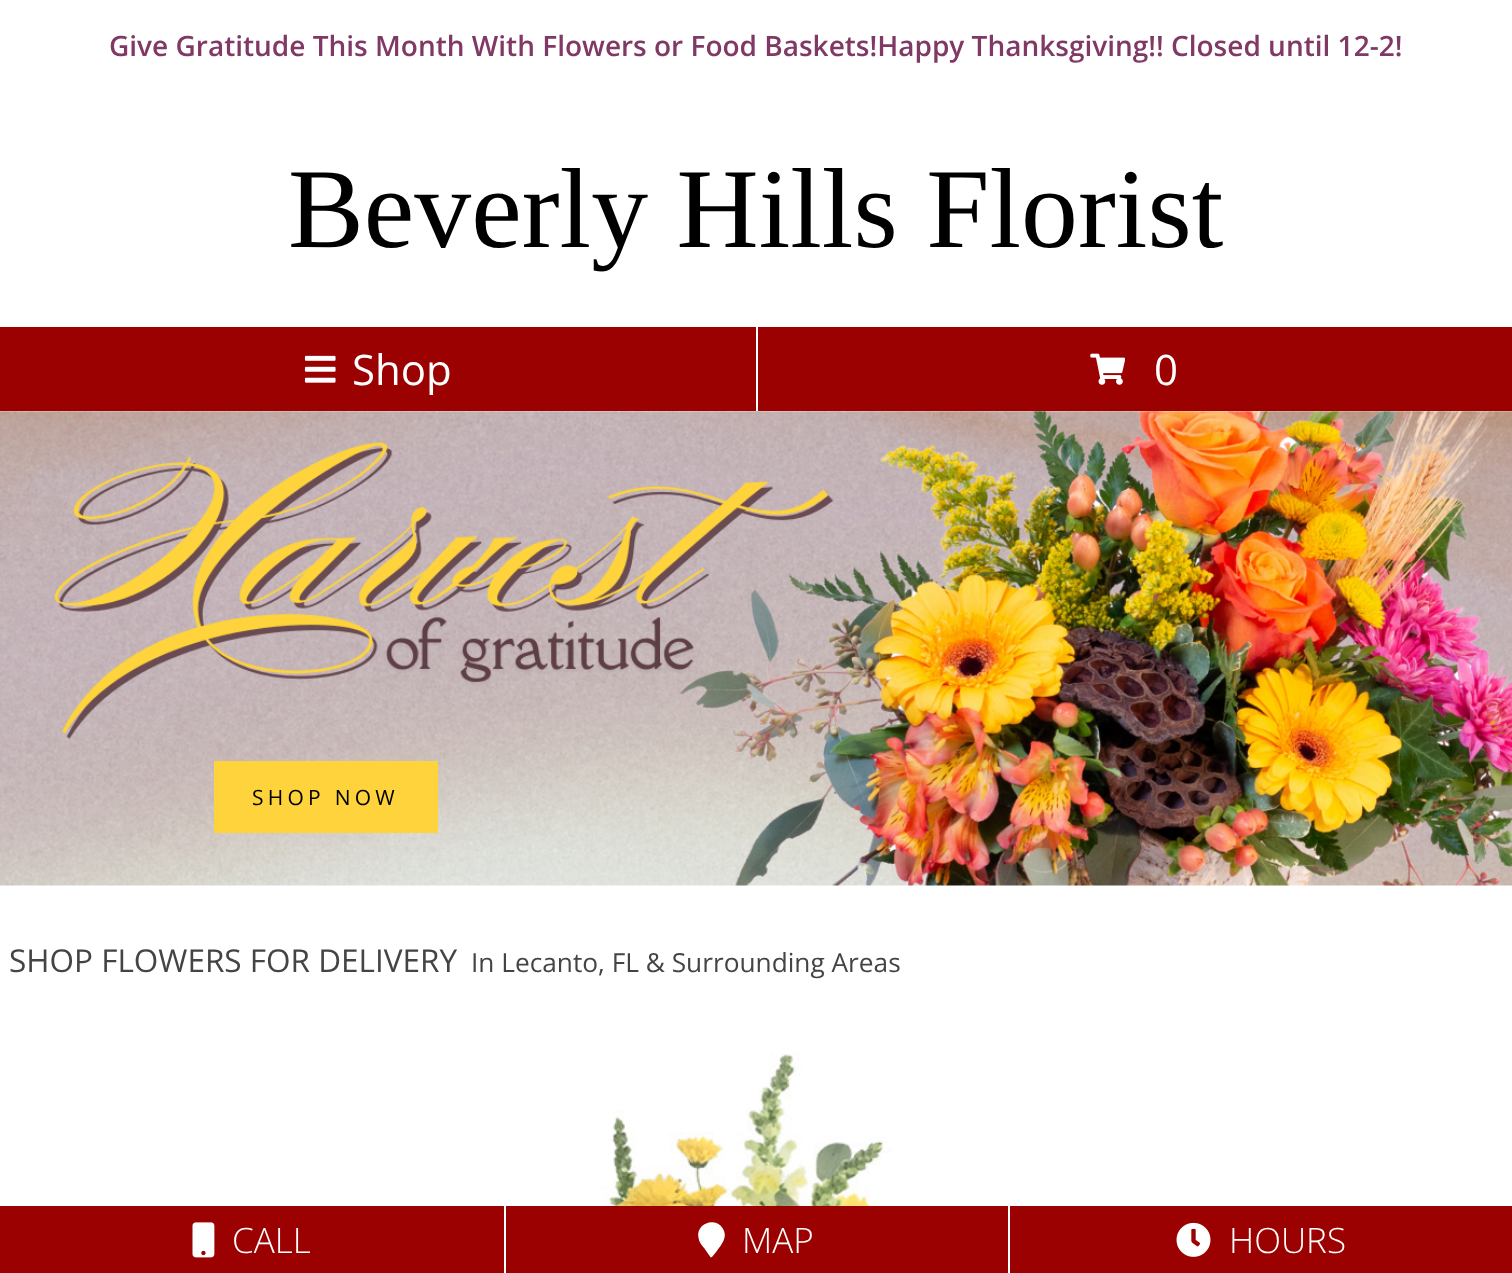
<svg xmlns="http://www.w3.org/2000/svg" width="1512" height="1273">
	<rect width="100%" height="100%" fill="#FFFFFF" />
	<text x="109" y="56" font-family="Open Sans" font-size="28" font-weight="600" fill="#803965">Give Gratitude This Month With Flowers or Food Baskets!Happy Thanksgiving!! Closed until 12-2!</text>
	<text x="288" y="247" font-family="Liberation Serif" font-size="113.75" fill="#000000">Beverly Hills Florist</text>
	<rect x="0" y="327" width="756" height="84" fill="#9B0101" />
	<image x="304" y="355" width="32" height="28" href="assets/img1.png" />
	<text x="352" y="385" font-family="Open Sans" font-size="42" fill="#FFFFFF">Shop</text>
	<rect x="758" y="327" width="754" height="84" fill="#9B0101" />
	<image x="1090" y="353" width="35" height="32" href="assets/img2.png" />
	<text x="1154" y="385" font-family="Open Sans" font-size="42" fill="#FFFFFF">0</text>
	<image x="0" y="411" width="1512" height="475" href="assets/img3.png" />
	<rect x="214" y="761" width="224" height="72" fill="#FED33B" />
	<text x="252" y="805" font-family="Open Sans" font-size="21" letter-spacing="4.25" fill="#000000">SHOP NOW</text>
	<text x="9" y="972" font-family="Open Sans" font-size="31.5" fill="#444444">SHOP FLOWERS FOR DELIVERY</text>
	<text x="471" y="972" font-family="Open Sans" font-size="26.25" fill="#444444">In Lecanto, FL &amp; Surrounding Areas</text>
	<image x="547" y="1053" width="400" height="153" href="assets/img4.png" />
	<rect x="0" y="1206" width="504" height="67" fill="#9B0101" />
	<image x="192" y="1222" width="23" height="36" href="assets/img5.png" />
	<text x="232" y="1253" font-family="Open Sans" font-size="35" font-weight="300" fill="#FFFFFF">CALL</text>
	<rect x="506" y="1206" width="502" height="67" fill="#9B0101" />
	<path d="M710 1256.5L704.5 1248.5C702 1245.5 699 1242 698.5 1238C695.5 1224 714.5 1216.5 722.5 1228C728.5 1237 721.5 1244.5 716.5 1251.5L712 1257C711.5 1257.5 710.5 1257.5 710 1256.5Z" fill="#FFFFFF" />
	<text x="742" y="1253" font-family="Open Sans" font-size="35" font-weight="300" fill="#FFFFFF">MAP</text>
	<rect x="1010" y="1206" width="502" height="67" fill="#9B0101" />
	<image x="1176" y="1222" width="35" height="35" href="assets/img6.png" />
	<text x="1229" y="1253" font-family="Open Sans" font-size="35" font-weight="300" fill="#FFFFFF">HOURS</text>
</svg>
